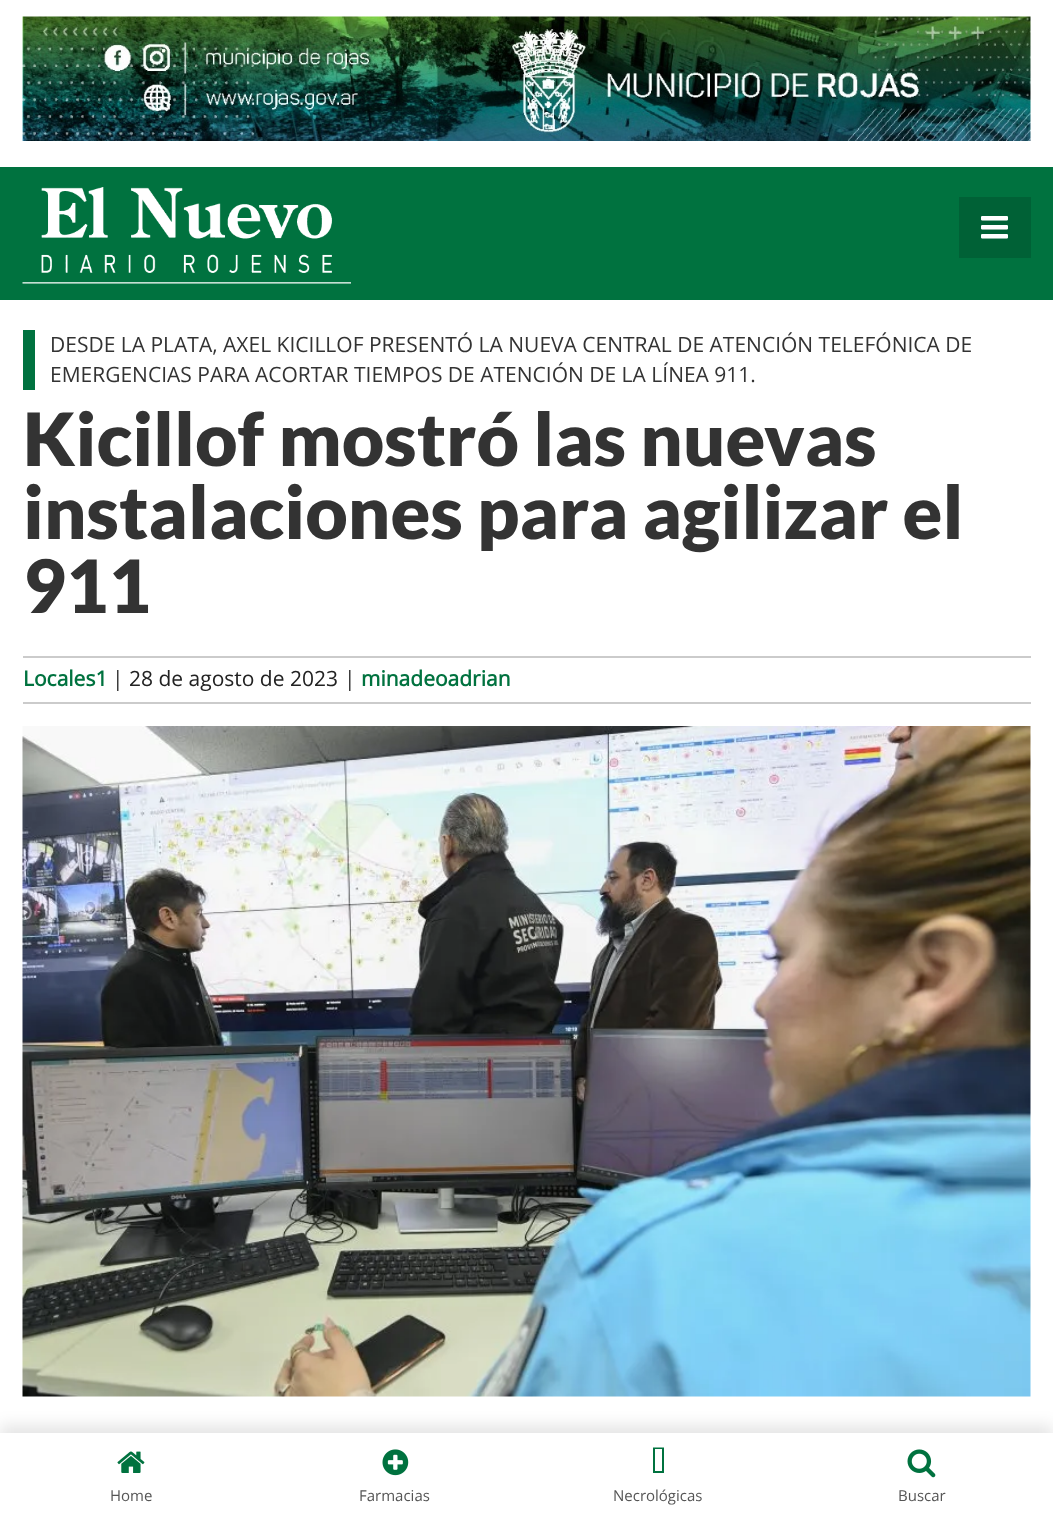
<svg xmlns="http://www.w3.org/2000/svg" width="1053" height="1520">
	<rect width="100%" height="100%" fill="#FFFFFF" />
	<image x="22" y="16" width="1009" height="125" href="assets/img1.png" />
	<rect x="0" y="167" width="1053" height="133" fill="#00723F" />
	<image x="22" y="187" width="329" height="97" href="assets/img2.png" />
	<rect x="959" y="197" width="72" height="61" fill="#006136" />
	<image x="981" y="216" width="27" height="23" href="assets/img3.png" />
	<rect x="23" y="330" width="12" height="60" fill="#00723F" />
	<g font-family="Open Sans" font-size="21" fill="#333333">
		<text x="50" y="352">DESDE LA PLATA, AXEL KICILLOF PRESENTÓ LA NUEVA CENTRAL DE ATENCIÓN TELEFÓNICA DE</text>
		<text x="50" y="382">EMERGENCIAS PARA ACORTAR TIEMPOS DE ATENCIÓN DE LA LÍNEA 911.</text>
	</g>
	<g font-family="Lato" font-size="73.5" font-weight="900" fill="#333333">
		<text x="23" y="466">Kicillof mostró las nuevas</text>
		<text x="23" y="539">instalaciones para agilizar el</text>
		<text x="23" y="613">911</text>
	</g>
	<rect x="23" y="656" width="1008" height="2" fill="#CBCBCB" />
	<rect x="23" y="702" width="1008" height="2" fill="#CBCBCB" />
	<text x="23" y="686" font-family="Open Sans" font-size="21" font-weight="700" fill="#00723F">Locales1</text>
	<text x="112" y="686" font-family="Open Sans" font-size="21" fill="#333333">|</text>
	<text x="129" y="686" font-family="Open Sans" font-size="21" fill="#222222">28 de agosto de 2023</text>
	<text x="344" y="686" font-family="Open Sans" font-size="21" fill="#333333">|</text>
	<text x="361" y="686" font-family="Open Sans" font-size="21" font-weight="700" fill="#00723F">minadeoadrian</text>
	<image x="22" y="726" width="1009" height="671" href="assets/img4.png" />
	<rect x="0" y="1425" width="1053" height="89" fill="#000000" fill-opacity="0.1" filter="blur(7.5px)" />
	<rect x="0" y="1433" width="1053" height="87" fill="#FFFFFF" />
	<image x="117" y="1451" width="28" height="22" href="assets/img5.png" />
	<text x="110" y="1501" font-family="Open Sans" font-size="15" fill="#555555">Home</text>
	<image x="382" y="1449" width="27" height="27" href="assets/img6.png" />
	<text x="359" y="1501" font-family="Open Sans" font-size="15" fill="#555555">Farmacias</text>
	<path d="M655 1471H662V1449H655ZM653 1473V1447.5H664V1473Z" fill="#00723F" />
	<text x="613" y="1501" font-family="Open Sans" font-size="15" fill="#555555">Necrológicas</text>
	<image x="907" y="1449" width="29" height="29" href="assets/img7.png" />
	<text x="898" y="1501" font-family="Open Sans" font-size="15" fill="#555555">Buscar</text>
</svg>
